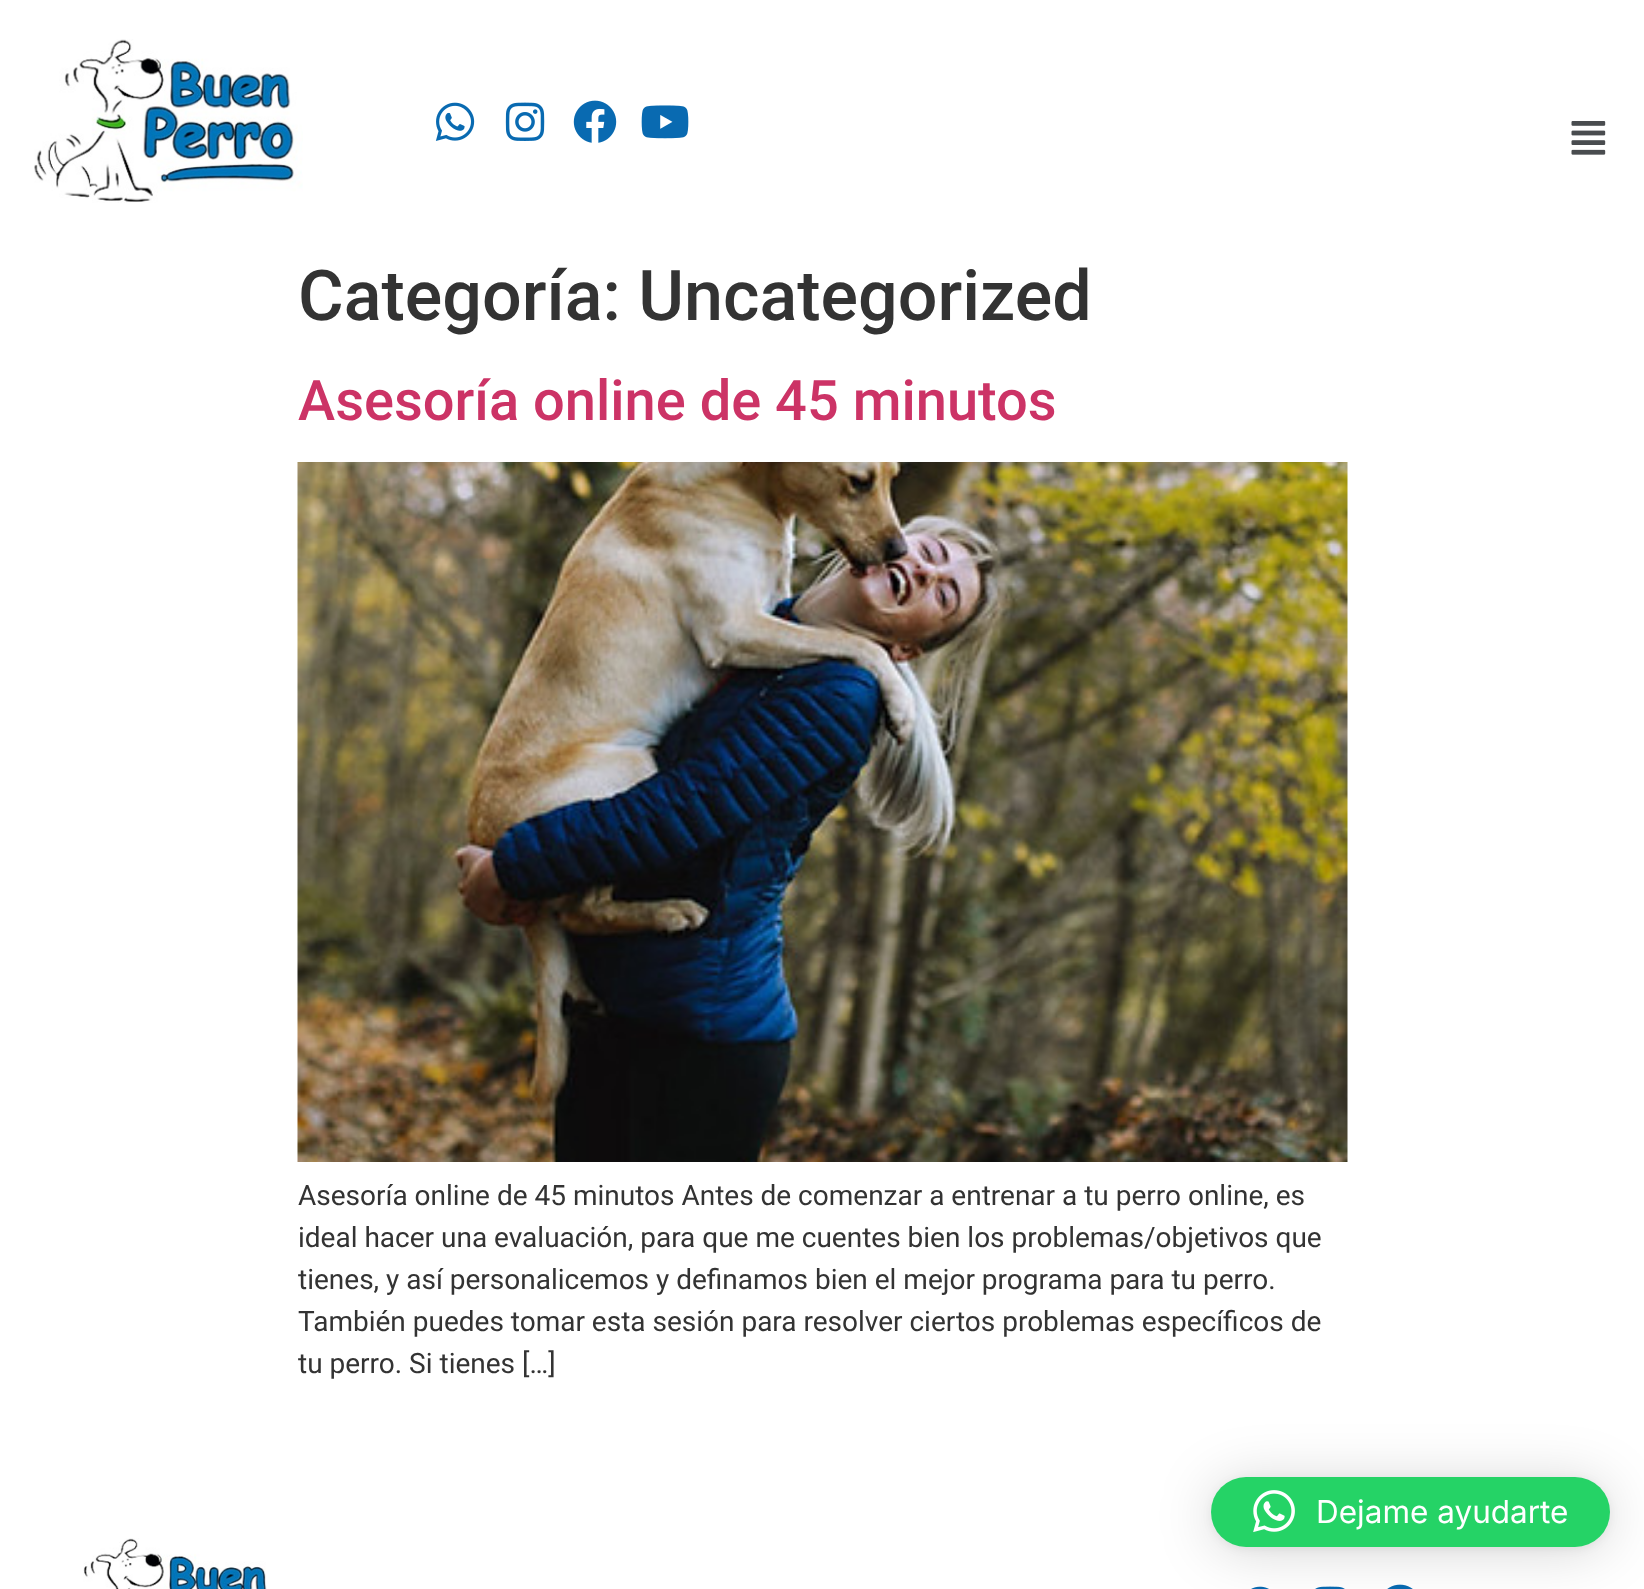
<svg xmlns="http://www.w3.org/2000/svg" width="1644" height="1589">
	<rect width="100%" height="100%" fill="#FFFFFF" />
	<image x="34" y="39" width="269" height="164" href="assets/img1.png" />
	<image x="435" y="102" width="40" height="39" href="assets/img2.png" />
	<image x="505" y="102" width="40" height="39" href="assets/img3.png" />
	<image x="573" y="100" width="44" height="43" href="assets/img4.png" />
	<image x="641" y="105" width="48" height="34" href="assets/img5.png" />
	<image x="1571" y="121" width="35" height="34" href="assets/img6.png" />
	<text x="298" y="320" font-family="Roboto" font-size="70" font-weight="500" fill="#333333">Categoría: Uncategorized</text>
	<text x="298" y="420" font-family="Roboto" font-size="56" font-weight="500" fill="#CC3366">Asesoría online de 45 minutos</text>
	<image x="297" y="462" width="1051" height="700" href="assets/img7.png" />
	<g font-family="Roboto" font-size="28" fill="#333333">
		<text x="298" y="1205">Asesoría online de 45 minutos Antes de comenzar a entrenar a tu perro online, es</text>
		<text x="298" y="1247">ideal hacer una evaluación, para que me cuentes bien los problemas/objetivos que</text>
		<text x="298" y="1289">tienes, y así personalicemos y definamos bien el mejor programa para tu perro.</text>
		<text x="298" y="1331">También puedes tomar esta sesión para resolver ciertos problemas específicos de</text>
		<text x="298" y="1373">tu perro. Si tienes […]</text>
	</g>
	<image x="83" y="1538" width="184" height="51" href="assets/img8.png" />
	<image x="1251" y="1586" width="18" height="3" href="assets/img9.png" />
	<image x="1315" y="1586" width="30" height="3" href="assets/img10.png" />
	<image x="1387" y="1584" width="26" height="5" href="assets/img11.png" />
	<rect x="1211" y="1481" width="399" height="70" rx="35" fill="#000000" fill-opacity="0.16" filter="blur(28px)" />
	<rect x="1211" y="1479" width="399" height="70" rx="35" fill="#000000" fill-opacity="0.06" filter="blur(5px)" />
	<rect x="1211" y="1477" width="399" height="70" rx="35" fill="#25D366" />
	<image x="1253" y="1490" width="42" height="43" href="assets/img12.png" />
	<text x="1316" y="1523" font-family="Inter" font-size="31.5" fill="#FFFFFF">Dejame ayudarte</text>
</svg>
